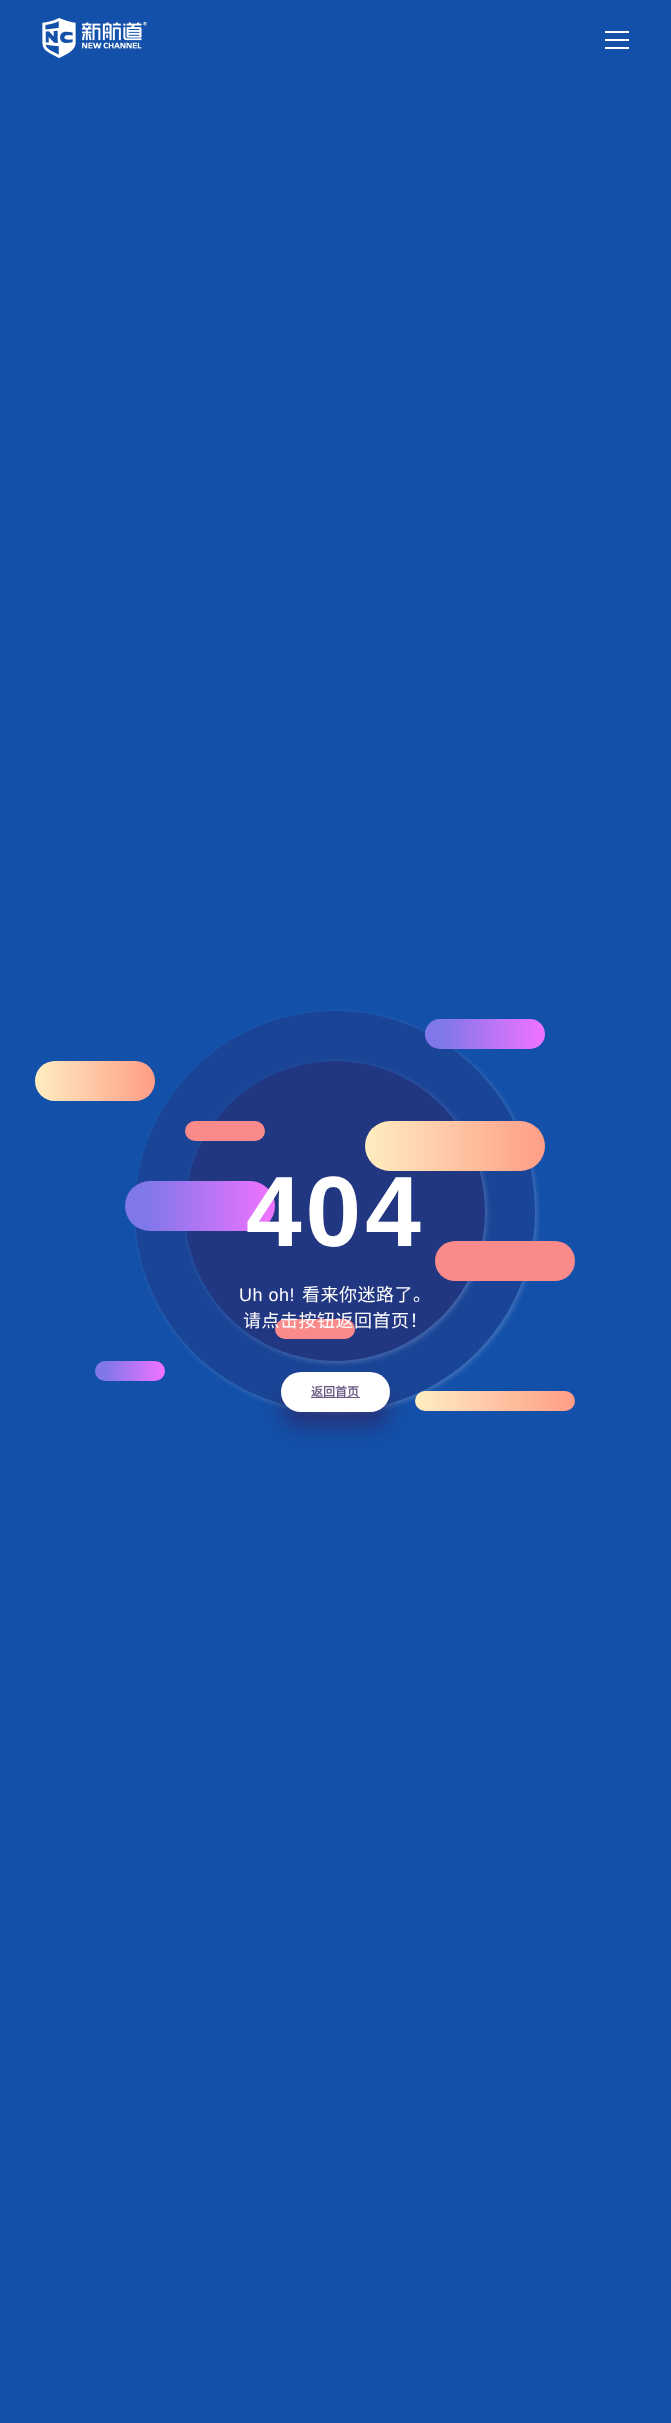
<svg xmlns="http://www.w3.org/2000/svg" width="671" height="2423">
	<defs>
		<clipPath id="clip1"><path d="M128 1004H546V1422H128ZM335 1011C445.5 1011 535 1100.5 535 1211C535 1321.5 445.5 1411 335 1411C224.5 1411 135 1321.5 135 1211C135 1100.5 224.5 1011 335 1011Z" clip-rule="evenodd" /></clipPath>
		<linearGradient id="g1" gradientUnits="userSpaceOnUse" x1="425" y1="1034" x2="545" y2="1034"><stop offset="0.14" stop-color="#8077EA" /><stop offset="0.95" stop-color="#EB73FF" /></linearGradient>
		<clipPath id="clip2"><path d="M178 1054H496V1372H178ZM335 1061C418 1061 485 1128 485 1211C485 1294 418 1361 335 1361C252 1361 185 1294 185 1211C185 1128 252 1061 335 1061Z" clip-rule="evenodd" /></clipPath>
		<linearGradient id="g2" gradientUnits="userSpaceOnUse" x1="125" y1="1206" x2="275" y2="1206"><stop offset="0.14" stop-color="#8077EA" /><stop offset="0.95" stop-color="#EB73FF" /></linearGradient>
		<linearGradient id="g3" gradientUnits="userSpaceOnUse" x1="95" y1="1371" x2="165" y2="1371"><stop offset="0.14" stop-color="#8077EA" /><stop offset="0.95" stop-color="#EB73FF" /></linearGradient>
		<linearGradient id="g4" gradientUnits="userSpaceOnUse" x1="35" y1="1081" x2="155" y2="1081"><stop offset="0" stop-color="#FFEDC0" /><stop offset="1" stop-color="#FF9D87" /></linearGradient>
		<linearGradient id="g5" gradientUnits="userSpaceOnUse" x1="365" y1="1146" x2="545" y2="1146"><stop offset="0" stop-color="#FFEDC0" /><stop offset="1" stop-color="#FF9D87" /></linearGradient>
		<linearGradient id="g6" gradientUnits="userSpaceOnUse" x1="415" y1="1401" x2="575" y2="1401"><stop offset="0" stop-color="#FFEDC0" /><stop offset="1" stop-color="#FF9D87" /></linearGradient>
	</defs>
	<rect width="100%" height="100%" fill="#1350A9" />
	<image x="42" y="18" width="105" height="40" href="assets/img1.png" />
	<rect x="605" y="39" width="24" height="2" fill="#FFFFFF" />
	<rect x="605" y="31" width="24" height="2" fill="#FFFFFF" />
	<rect x="605" y="47" width="24" height="2" fill="#FFFFFF" />
	<g clip-path="url(#clip1)">
		<rect x="137" y="1013" width="400" height="400" rx="200" fill="#FFFFFF" fill-opacity="0.2" filter="blur(2.5px)" />
	</g>
	<circle cx="335" cy="1211" r="200" fill="#36184F" fill-opacity="0.2" />
	<rect x="425" y="1019" width="120" height="30" rx="15" fill="url(#g1)" />
	<g clip-path="url(#clip2)">
		<rect x="187" y="1063" width="300" height="300" rx="150" fill="#FFFFFF" fill-opacity="0.2" filter="blur(2.5px)" />
	</g>
	<circle cx="335" cy="1211" r="150" fill="#36184F" fill-opacity="0.3" />
	<rect x="125" y="1181" width="150" height="50" rx="25" fill="url(#g2)" />
	<rect x="95" y="1361" width="70" height="20" rx="10" fill="url(#g3)" />
	<rect x="35" y="1061" width="120" height="40" rx="20" fill="url(#g4)" />
	<rect x="365" y="1121" width="180" height="50" rx="25" fill="url(#g5)" />
	<rect x="415" y="1391" width="160" height="20" rx="10" fill="url(#g6)" />
	<rect x="185" y="1121" width="80" height="20" rx="10" fill="#FB8A8A" />
	<rect x="435" y="1241" width="140" height="40" rx="20" fill="#FB8A8A" />
	<rect x="275" y="1319" width="80" height="20" rx="10" fill="#FB8A8A" />
	<text x="246" y="1246" font-family="Liberation Sans" font-size="100" font-weight="700" letter-spacing="4" fill="#FFFFFF">404</text>
	<text x="239" y="1301" font-family="Liberation Sans" font-size="18" letter-spacing="0.5" fill="#FFFFFF">Uh oh!</text>
	<g font-family="Noto Sans CJK SC" font-size="18" letter-spacing="0.5" fill="#FFFFFF">
		<text x="302" y="1301">看来你迷路了。</text>
		<text x="243" y="1327">请点击按钮返回首页！</text>
	</g>
	<rect x="281" y="1387" width="109" height="40" rx="20" fill="#36184F" fill-opacity="0.5" filter="blur(10px)" />
	<rect x="281" y="1372" width="109" height="40" rx="20" fill="#FFFFFF" />
	<text x="311" y="1396" font-family="Noto Sans CJK SC" font-size="12" font-weight="700" fill="#695681">返回首页</text>
	<rect x="311" y="1397" width="49" height="1" fill="#695681" />
</svg>
